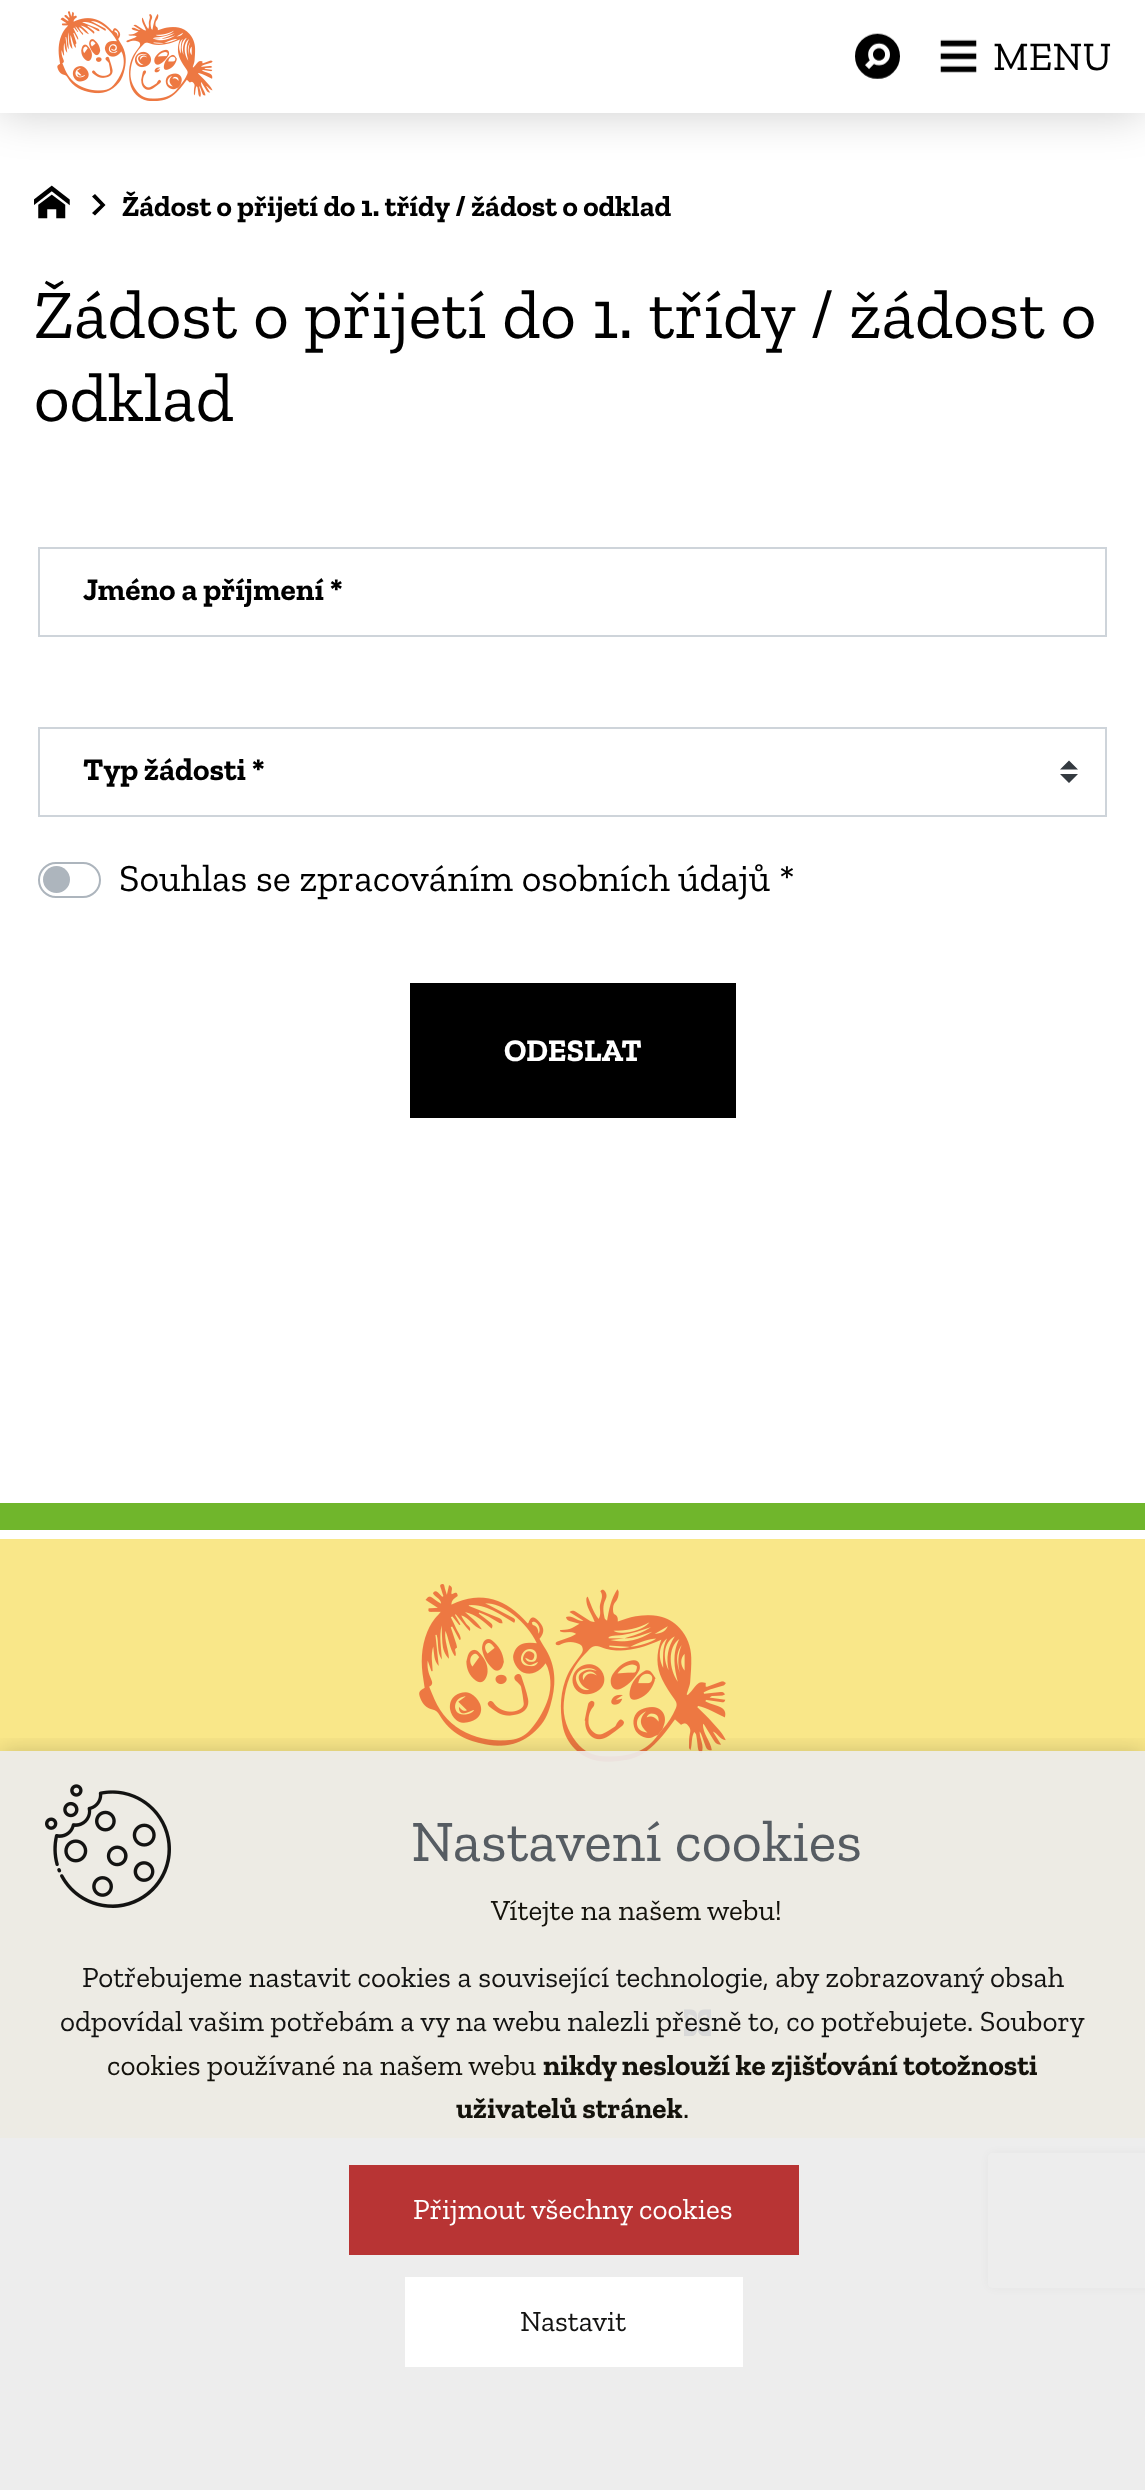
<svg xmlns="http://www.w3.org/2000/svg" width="1145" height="2490">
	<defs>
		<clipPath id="clip1"><path d="M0 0H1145V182H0ZM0 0H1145V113H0Z" clip-rule="evenodd" /></clipPath>
		<clipPath id="clip2"><path d="M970 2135H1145V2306H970ZM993 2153H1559C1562 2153 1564 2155 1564 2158V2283C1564 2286 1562 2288 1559 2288H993C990 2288 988 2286 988 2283V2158C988 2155 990 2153 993 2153Z" clip-rule="evenodd" /></clipPath>
		<clipPath id="clip3"><rect x="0" y="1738" width="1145" height="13" /></clipPath>
	</defs>
	<rect width="100%" height="100%" fill="#FFFFFF" />
	<g clip-path="url(#clip1)">
		<rect x="0" y="0" width="1145" height="113" fill="#000000" fill-opacity="0.2" filter="blur(22.5px)" />
	</g>
	<rect x="0" y="112" width="1145" height="1" fill="#FFFFFF" fill-opacity="0.9" />
	<image x="57" y="11" width="156" height="90" href="assets/img1.png" />
	<image x="855" y="33" width="45" height="46" href="assets/img2.png" />
	<image x="940" y="39" width="37" height="34" href="assets/img3.png" />
	<text x="993" y="70" font-family="Zilla Slab" font-size="40.5" fill="#000000">MENU</text>
	<image x="34" y="185" width="36" height="34" href="assets/img4.png" />
	<path d="M100.5 205L92 196.5L95 194L105.5 205L95 215.5L92 213Z" fill="#000000" />
	<text x="122" y="216" font-family="Zilla Slab" font-size="29.25" font-weight="700" fill="#000000">Žádost o přijetí do 1. třídy / žádost o odklad</text>
	<g font-family="Zilla Slab" font-size="69.4" fill="#000000">
		<text x="34" y="338">Žádost o přijetí do 1. třídy / žádost o</text>
		<text x="34" y="421">odklad</text>
	</g>
	<rect x="39" y="548" width="1067" height="88" fill="none" stroke="#CED4DA" stroke-width="2" />
	<text x="83" y="600" font-family="Zilla Slab" font-size="31.5" font-weight="700" fill="#000000">Jméno a příjmení *</text>
	<path d="M1069 760.5L1060 769.5H1078ZM1069 783L1060 774H1078Z" fill="#343A40" />
	<rect x="39" y="728" width="1067" height="88" fill="none" stroke="#CED4DA" stroke-width="2" />
	<text x="83" y="780" font-family="Zilla Slab" font-size="31.5" font-weight="700" fill="#000000">Typ žádosti *</text>
	<rect x="39" y="863" width="61" height="34" rx="17" fill="none" stroke="#ADB5BD" stroke-width="2" />
	<text x="119" y="891" font-family="Zilla Slab" font-size="38.25" fill="#000000">Souhlas se zpracováním osobních údajů *</text>
	<circle cx="56.5" cy="879.5" r="13.5" fill="#ADB5BD" />
	<rect x="410" y="983" width="326" height="135" fill="#000000" />
	<text x="504" y="1061" font-family="Zilla Slab" font-size="31.5" font-weight="700" fill="#FFFFFF">ODESLAT</text>
	<g clip-path="url(#clip2)">
		<rect x="988" y="2153" width="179" height="135" rx="5" fill="#808080" filter="blur(5.5px)" />
	</g>
	<rect x="0" y="1503" width="1145" height="27" fill="#70B62C" />
	<rect x="0" y="1539" width="1145" height="599" fill="#F9E789" />
	<image x="419" y="1584" width="307" height="178" href="assets/img5.png" />
	<image x="684" y="2009" width="27" height="28" href="assets/img6.png" />
	<g clip-path="url(#clip3)">
		<rect x="0" y="1751" width="1145" height="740" fill="#010101" fill-opacity="0.18" filter="blur(11px)" />
	</g>
	<rect x="0" y="1751" width="1145" height="739" fill="#EBEBEB" fill-opacity="0.92" />
	<image x="45" y="1784" width="126" height="124" href="assets/img7.png" />
	<text x="411" y="1861" font-family="Zilla Slab" font-size="58.5" fill="#565C62">Nastavení cookies</text>
	<text x="491" y="1920" font-family="Zilla Slab" font-size="29.25" fill="#14120B">Vítejte na našem webu!</text>
	<g font-family="Zilla Slab" font-size="29.25" fill="#131312">
		<text x="82" y="1987">Potřebujeme nastavit cookies a související technologie, aby zobrazovaný obsah</text>
		<text x="60" y="2031">odpovídal vašim potřebám a vy na webu nalezli přesně to, co potřebujete. Soubory</text>
	</g>
	<text x="107" y="2075" font-family="Zilla Slab" font-size="29.25" fill="#14120B">cookies používané na našem webu</text>
	<g font-family="Zilla Slab" font-size="29.25" font-weight="700" fill="#14120B">
		<text x="543" y="2075">nikdy neslouží ke zjišťování totožnosti</text>
		<text x="456" y="2118">uživatelů stránek</text>
	</g>
	<text x="683" y="2118" font-family="Zilla Slab" font-size="29.25" fill="#14120B">.</text>
	<rect x="349" y="2165" width="450" height="90" fill="#B83434" />
	<text x="413" y="2219" font-family="Zilla Slab" font-size="29.25" fill="#FFFFFF">Přijmout všechny cookies</text>
	<rect x="405" y="2277" width="338" height="90" fill="#FFFFFF" />
	<text x="520" y="2331" font-family="Zilla Slab" font-size="29.25" fill="#131312">Nastavit</text>
</svg>
